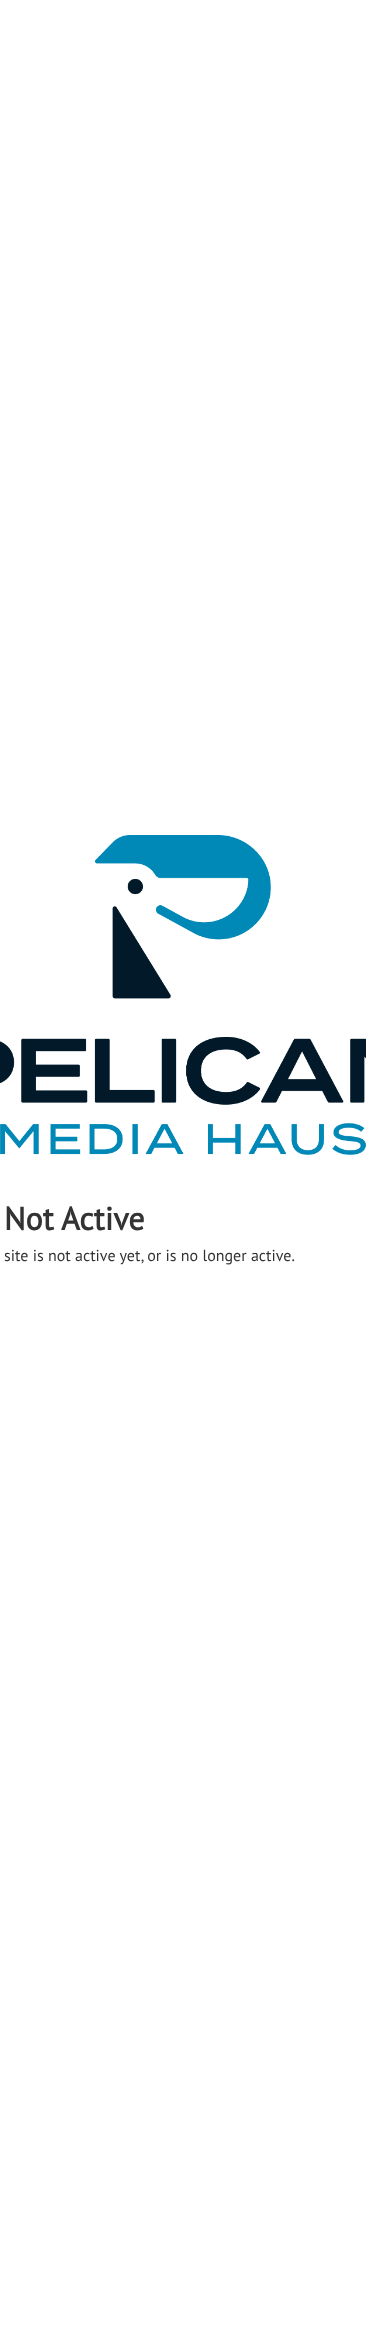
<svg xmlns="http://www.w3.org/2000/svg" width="366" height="2334">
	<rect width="100%" height="100%" fill="#FFFFFF" />
	<image x="0" y="835" width="366" height="320" href="assets/img1.png" />
	<text x="4" y="1230" font-family="PT Sans" font-size="32" font-weight="700" fill="#333333">Not Active</text>
	<text x="4" y="1261" font-family="PT Sans" font-size="16" fill="#333333">site is not active yet, or is no longer active.</text>
</svg>
